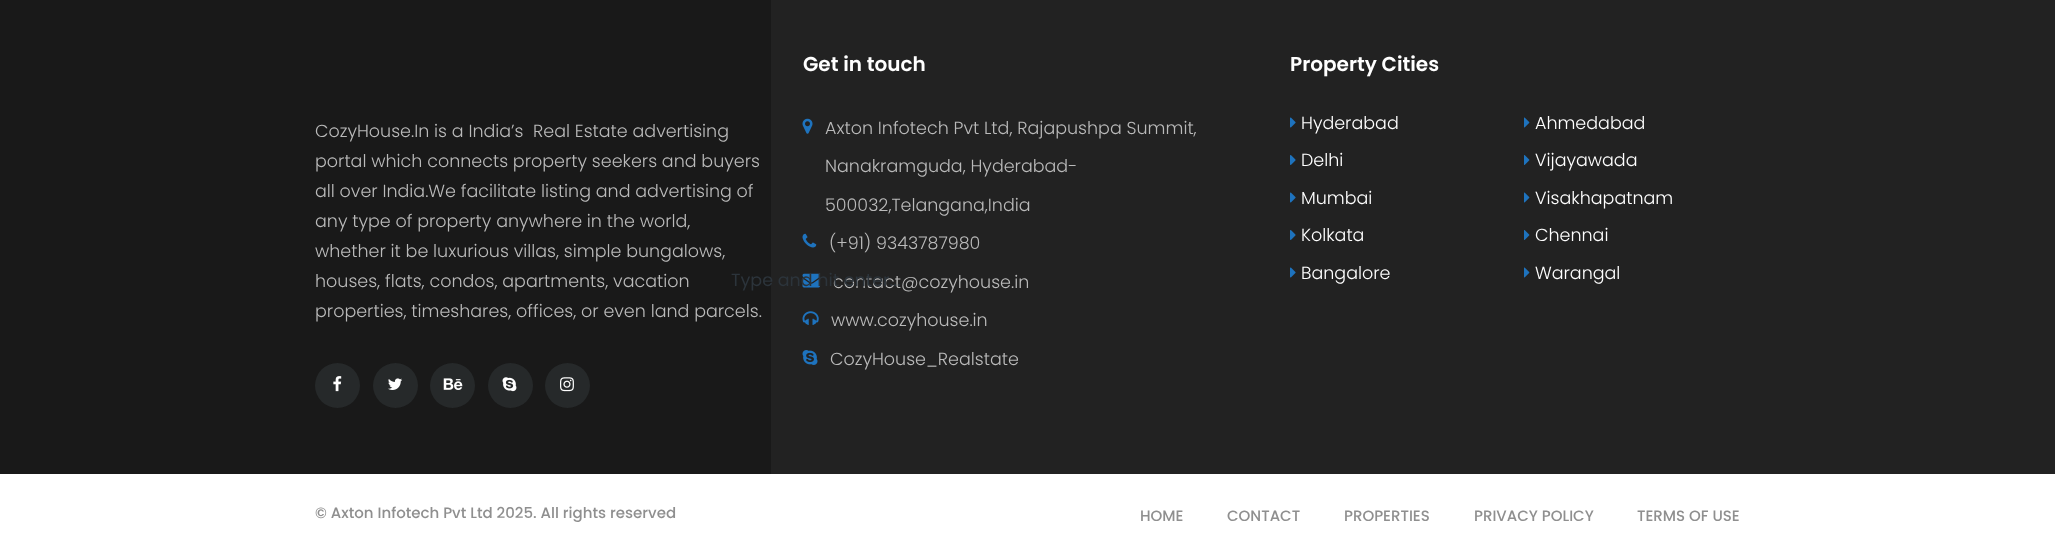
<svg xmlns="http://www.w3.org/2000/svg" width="2055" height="534">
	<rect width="100%" height="100%" fill="#222222" />
	<rect x="0" y="0" width="771" height="474" fill="#191919" />
	<g font-family="Poppins" font-size="17.5" font-weight="300" fill="#BABABA">
		<text x="315" y="137" xml:space="preserve">CozyHouse.In is a India’s  Real Estate advertising</text>
		<text x="315" y="167">portal which connects property seekers and buyers</text>
		<text x="315" y="197">all over India.We facilitate listing and advertising of</text>
		<text x="315" y="227">any type of property anywhere in the world,</text>
		<text x="315" y="257">whether it be luxurious villas, simple bungalows,</text>
		<text x="315" y="287">houses, flats, condos, apartments, vacation</text>
		<text x="315" y="317">properties, timeshares, offices, or even land parcels.</text>
	</g>
	<circle cx="337.5" cy="385.5" r="22.5" fill="#26292A" />
	<image x="333" y="376" width="9" height="16" href="assets/img1.png" />
	<circle cx="395.5" cy="385.5" r="22.5" fill="#26292A" />
	<image x="388" y="378" width="14" height="12" href="assets/img2.png" />
	<circle cx="452.5" cy="385.5" r="22.5" fill="#26292A" />
	<image x="443" y="378" width="20" height="12" href="assets/img3.png" />
	<circle cx="510.5" cy="385.5" r="22.5" fill="#26292A" />
	<image x="502" y="377" width="15" height="15" href="assets/img4.png" />
	<circle cx="567.5" cy="385.5" r="22.5" fill="#26292A" />
	<image x="560" y="377" width="14" height="15" href="assets/img5.png" />
	<text x="803" y="71" font-family="Poppins" font-size="20" font-weight="600" fill="#FFFFFF">Get in touch</text>
	<image x="802" y="118" width="11" height="16" href="assets/img6.png" />
	<g font-family="Poppins" font-size="17.5" font-weight="300" fill="#BABABA">
		<text x="825" y="134">Axton Infotech Pvt Ltd, Rajapushpa Summit,</text>
		<text x="825" y="172">Nanakramguda, Hyderabad-</text>
		<text x="825" y="211">500032,Telangana,India</text>
	</g>
	<image x="802" y="233" width="15" height="15" href="assets/img7.png" />
	<text x="829" y="249" font-family="Poppins" font-size="17.5" font-weight="300" fill="#BABABA">(+91) 9343787980</text>
	<image x="802" y="273" width="18" height="15" href="assets/img8.png" />
	<text x="833" y="288" font-family="Poppins" font-size="17.5" font-weight="300" fill="#BABABA">contact@cozyhouse.in</text>
	<image x="802" y="311" width="17" height="14" href="assets/img9.png" />
	<text x="831" y="326" font-family="Poppins" font-size="17.5" font-weight="300" fill="#BABABA">www.cozyhouse.in</text>
	<image x="802" y="350" width="16" height="15" href="assets/img10.png" />
	<text x="830" y="365" font-family="Poppins" font-size="17.5" font-weight="300" fill="#BABABA">CozyHouse_Realstate</text>
	<text x="1290" y="71" font-family="Poppins" font-size="20" font-weight="600" fill="#FFFFFF">Property Cities</text>
	<image x="1290" y="117" width="6" height="11" href="assets/img11.png" />
	<text x="1301" y="129" font-family="Poppins" font-size="17.5" font-weight="300" fill="#FFFFFF">Hyderabad</text>
	<image x="1524" y="117" width="6" height="11" href="assets/img12.png" />
	<text x="1535" y="129" font-family="Poppins" font-size="17.5" font-weight="300" fill="#FFFFFF">Ahmedabad</text>
	<image x="1290" y="155" width="6" height="10" href="assets/img13.png" />
	<text x="1301" y="166" font-family="Poppins" font-size="17.5" font-weight="300" fill="#FFFFFF">Delhi</text>
	<image x="1524" y="155" width="6" height="10" href="assets/img14.png" />
	<text x="1535" y="166" font-family="Poppins" font-size="17.5" font-weight="300" fill="#FFFFFF">Vijayawada</text>
	<image x="1290" y="192" width="6" height="11" href="assets/img11.png" />
	<text x="1301" y="204" font-family="Poppins" font-size="17.5" font-weight="300" fill="#FFFFFF">Mumbai</text>
	<image x="1524" y="192" width="6" height="11" href="assets/img12.png" />
	<text x="1535" y="204" font-family="Poppins" font-size="17.5" font-weight="300" fill="#FFFFFF">Visakhapatnam</text>
	<image x="1290" y="230" width="6" height="10" href="assets/img13.png" />
	<text x="1301" y="241" font-family="Poppins" font-size="17.5" font-weight="300" fill="#FFFFFF">Kolkata</text>
	<image x="1524" y="230" width="6" height="10" href="assets/img14.png" />
	<text x="1535" y="241" font-family="Poppins" font-size="17.5" font-weight="300" fill="#FFFFFF">Chennai</text>
	<image x="1290" y="267" width="6" height="11" href="assets/img11.png" />
	<text x="1301" y="279" font-family="Poppins" font-size="17.5" font-weight="300" fill="#FFFFFF">Bangalore</text>
	<image x="1524" y="267" width="6" height="11" href="assets/img12.png" />
	<text x="1535" y="279" font-family="Poppins" font-size="17.5" font-weight="300" fill="#FFFFFF">Warangal</text>
	<rect x="0" y="474" width="2055" height="60" fill="#FFFFFF" />
	<g font-family="Poppins" font-size="15" font-weight="500" fill="#8F8F8F">
		<text x="315" y="518">© Axton Infotech Pvt Ltd 2025. All rights reserved</text>
		<text x="1140" y="521">HOME</text>
		<text x="1227" y="521">CONTACT</text>
		<text x="1344" y="521">PROPERTIES</text>
		<text x="1474" y="521">PRIVACY POLICY</text>
		<text x="1637" y="521">TERMS OF USE</text>
	</g>
	<text x="731" y="286" font-family="Poppins" font-size="17.5" fill="#2C343B">Type and hit enter...</text>
</svg>
